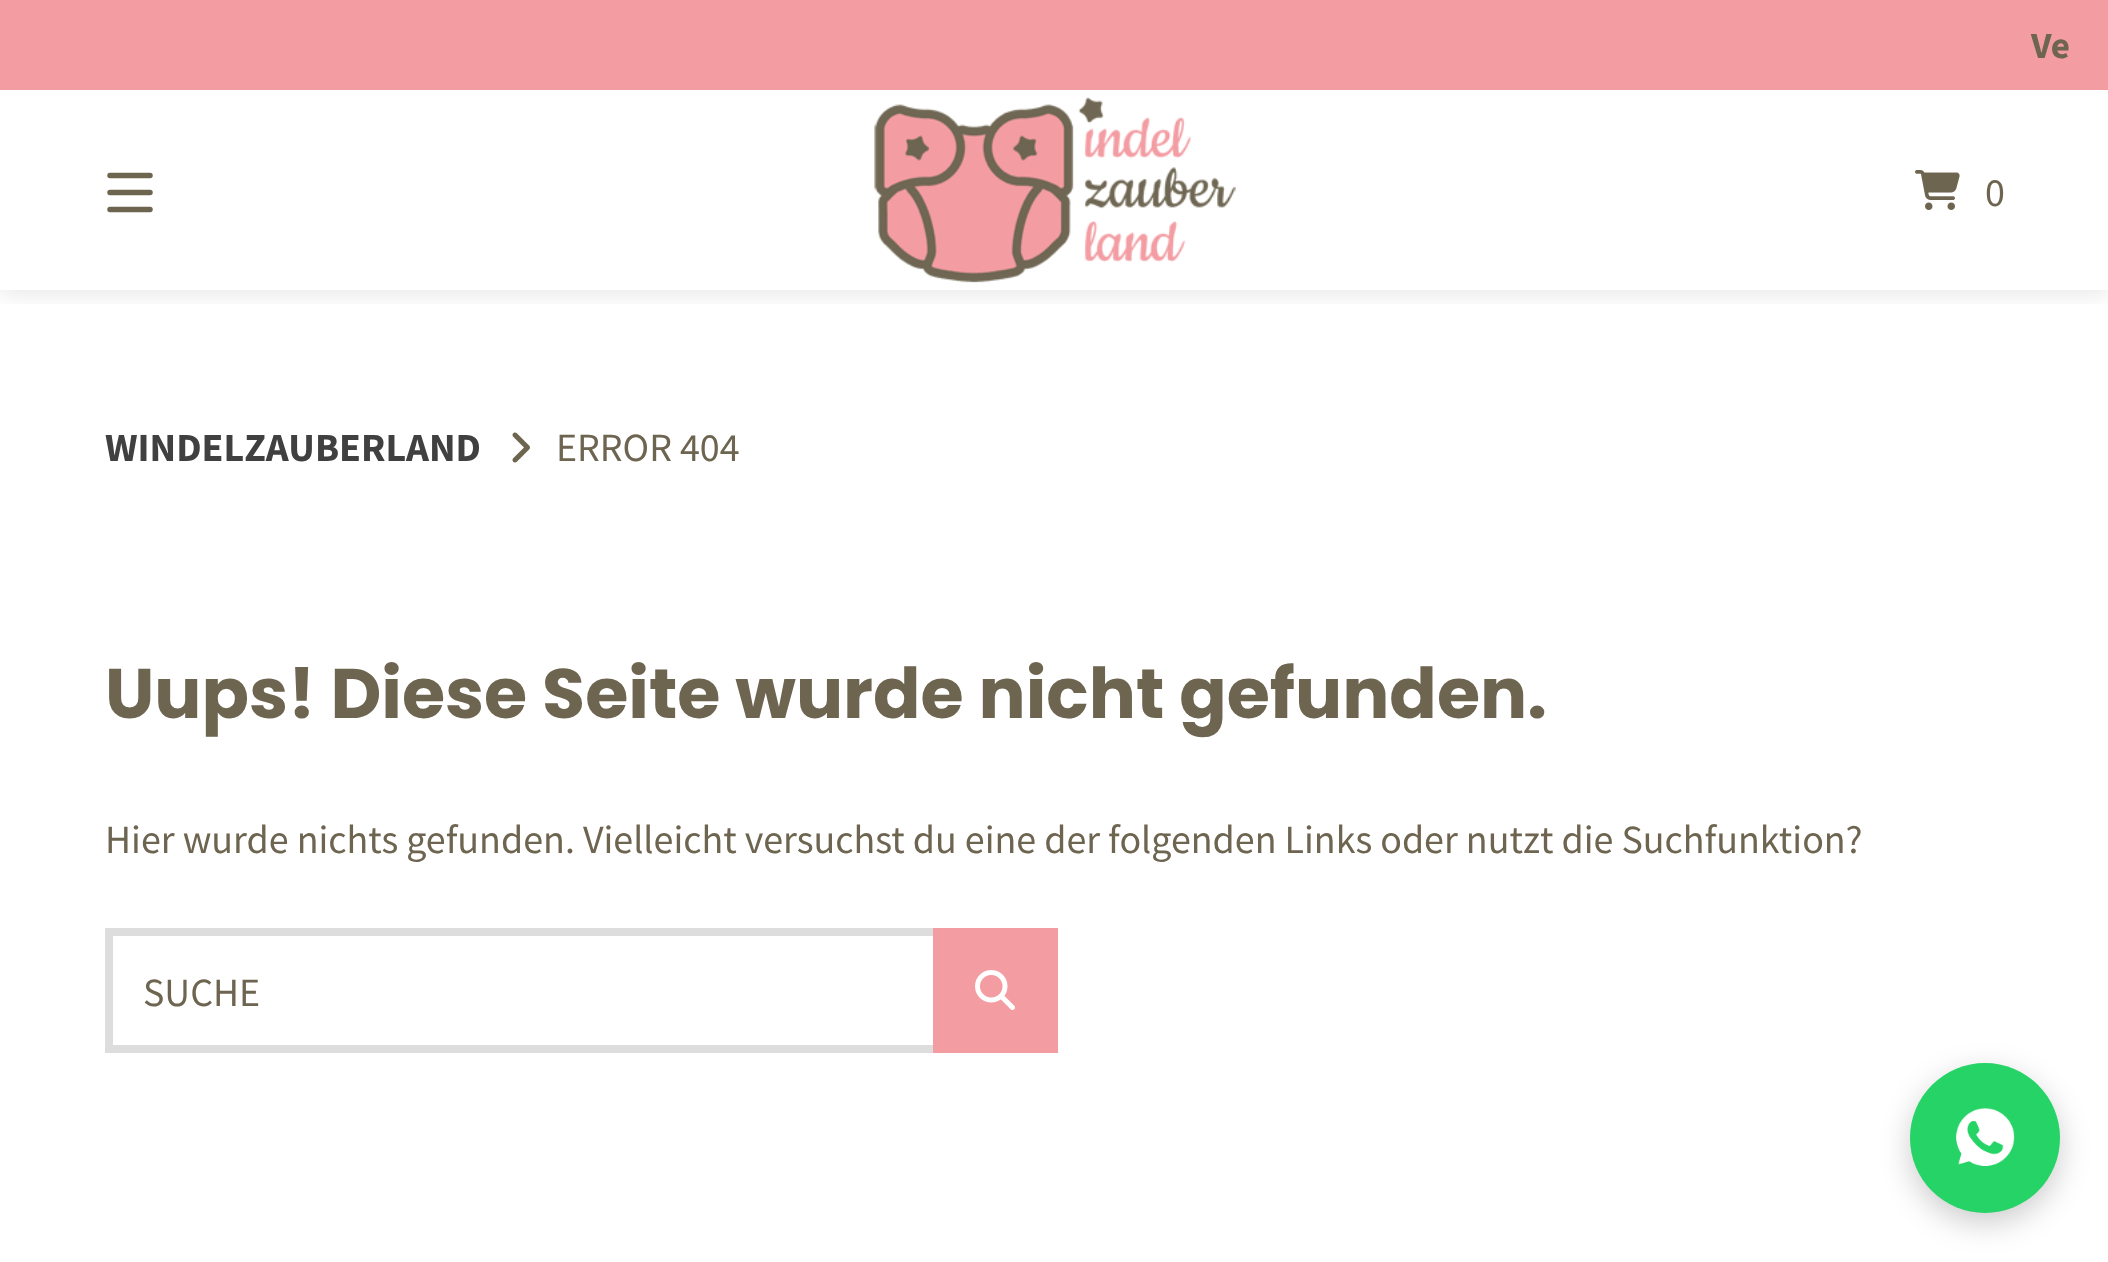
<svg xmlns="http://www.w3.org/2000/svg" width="2108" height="1262">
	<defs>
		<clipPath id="clip1"><rect x="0" y="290" width="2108" height="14" /></clipPath>
	</defs>
	<rect width="100%" height="100%" fill="#FFFFFF" />
	<g clip-path="url(#clip1)">
		<rect x="0" y="3" width="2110" height="290" fill="#000000" fill-opacity="0.1" filter="blur(12.5px)" />
	</g>
	<rect x="0" y="0" width="2108" height="90" fill="#F39CA2" />
	<text x="2031" y="58" font-family="Source Sans Pro" font-size="37" font-weight="700" fill="#6E6551">Ve</text>
	<path d="M110 175.5H150M110 192.5H150M110 209.5H150" fill="none" stroke="#6E6551" stroke-width="5.5" stroke-linecap="round" />
	<image x="874" y="97" width="362" height="186" href="assets/img1.png" />
	<image x="1915" y="170" width="45" height="40" href="assets/img2.png" />
	<text x="1985" y="206" font-family="Source Sans Pro" font-size="40" fill="#6E6551">0</text>
	<text x="105" y="461" font-family="Source Sans Pro" font-size="40" font-weight="700" fill="#404040">WINDELZAUBERLAND</text>
	<image x="512" y="432" width="18" height="31" href="assets/img3.png" />
	<text x="556" y="461" font-family="Source Sans Pro" font-size="40" fill="#6E6551">ERROR 404</text>
	<text x="105" y="718" font-family="Poppins" font-size="70" font-weight="700" fill="#6E6551">Uups! Diese Seite wurde nicht gefunden.</text>
	<text x="105" y="853" font-family="Source Sans Pro" font-size="40" fill="#6E6551">Hier wurde nichts gefunden. Vielleicht versuchst du eine der folgenden Links oder nutzt die Suchfunktion?</text>
	<rect x="105" y="928" width="828" height="8" fill="#DDDDDD" />
	<rect x="105" y="1045" width="828" height="8" fill="#DDDDDD" />
	<rect x="105" y="928" width="8" height="125" fill="#DDDDDD" />
	<text x="143" y="1006" font-family="Source Sans Pro" font-size="40" fill="#6E6551">SUCHE</text>
	<rect x="933" y="928" width="125" height="125" fill="#F39CA2" />
	<image x="975" y="970" width="40" height="40" href="assets/img4.png" />
	<rect x="1910" y="1073" width="150" height="150" rx="75" fill="#000000" fill-opacity="0.2" filter="blur(15px)" />
	<circle cx="1985" cy="1138" r="75" fill="#25D366" />
	<image x="1956" y="1108" width="59" height="58" href="assets/img5.png" />
</svg>
